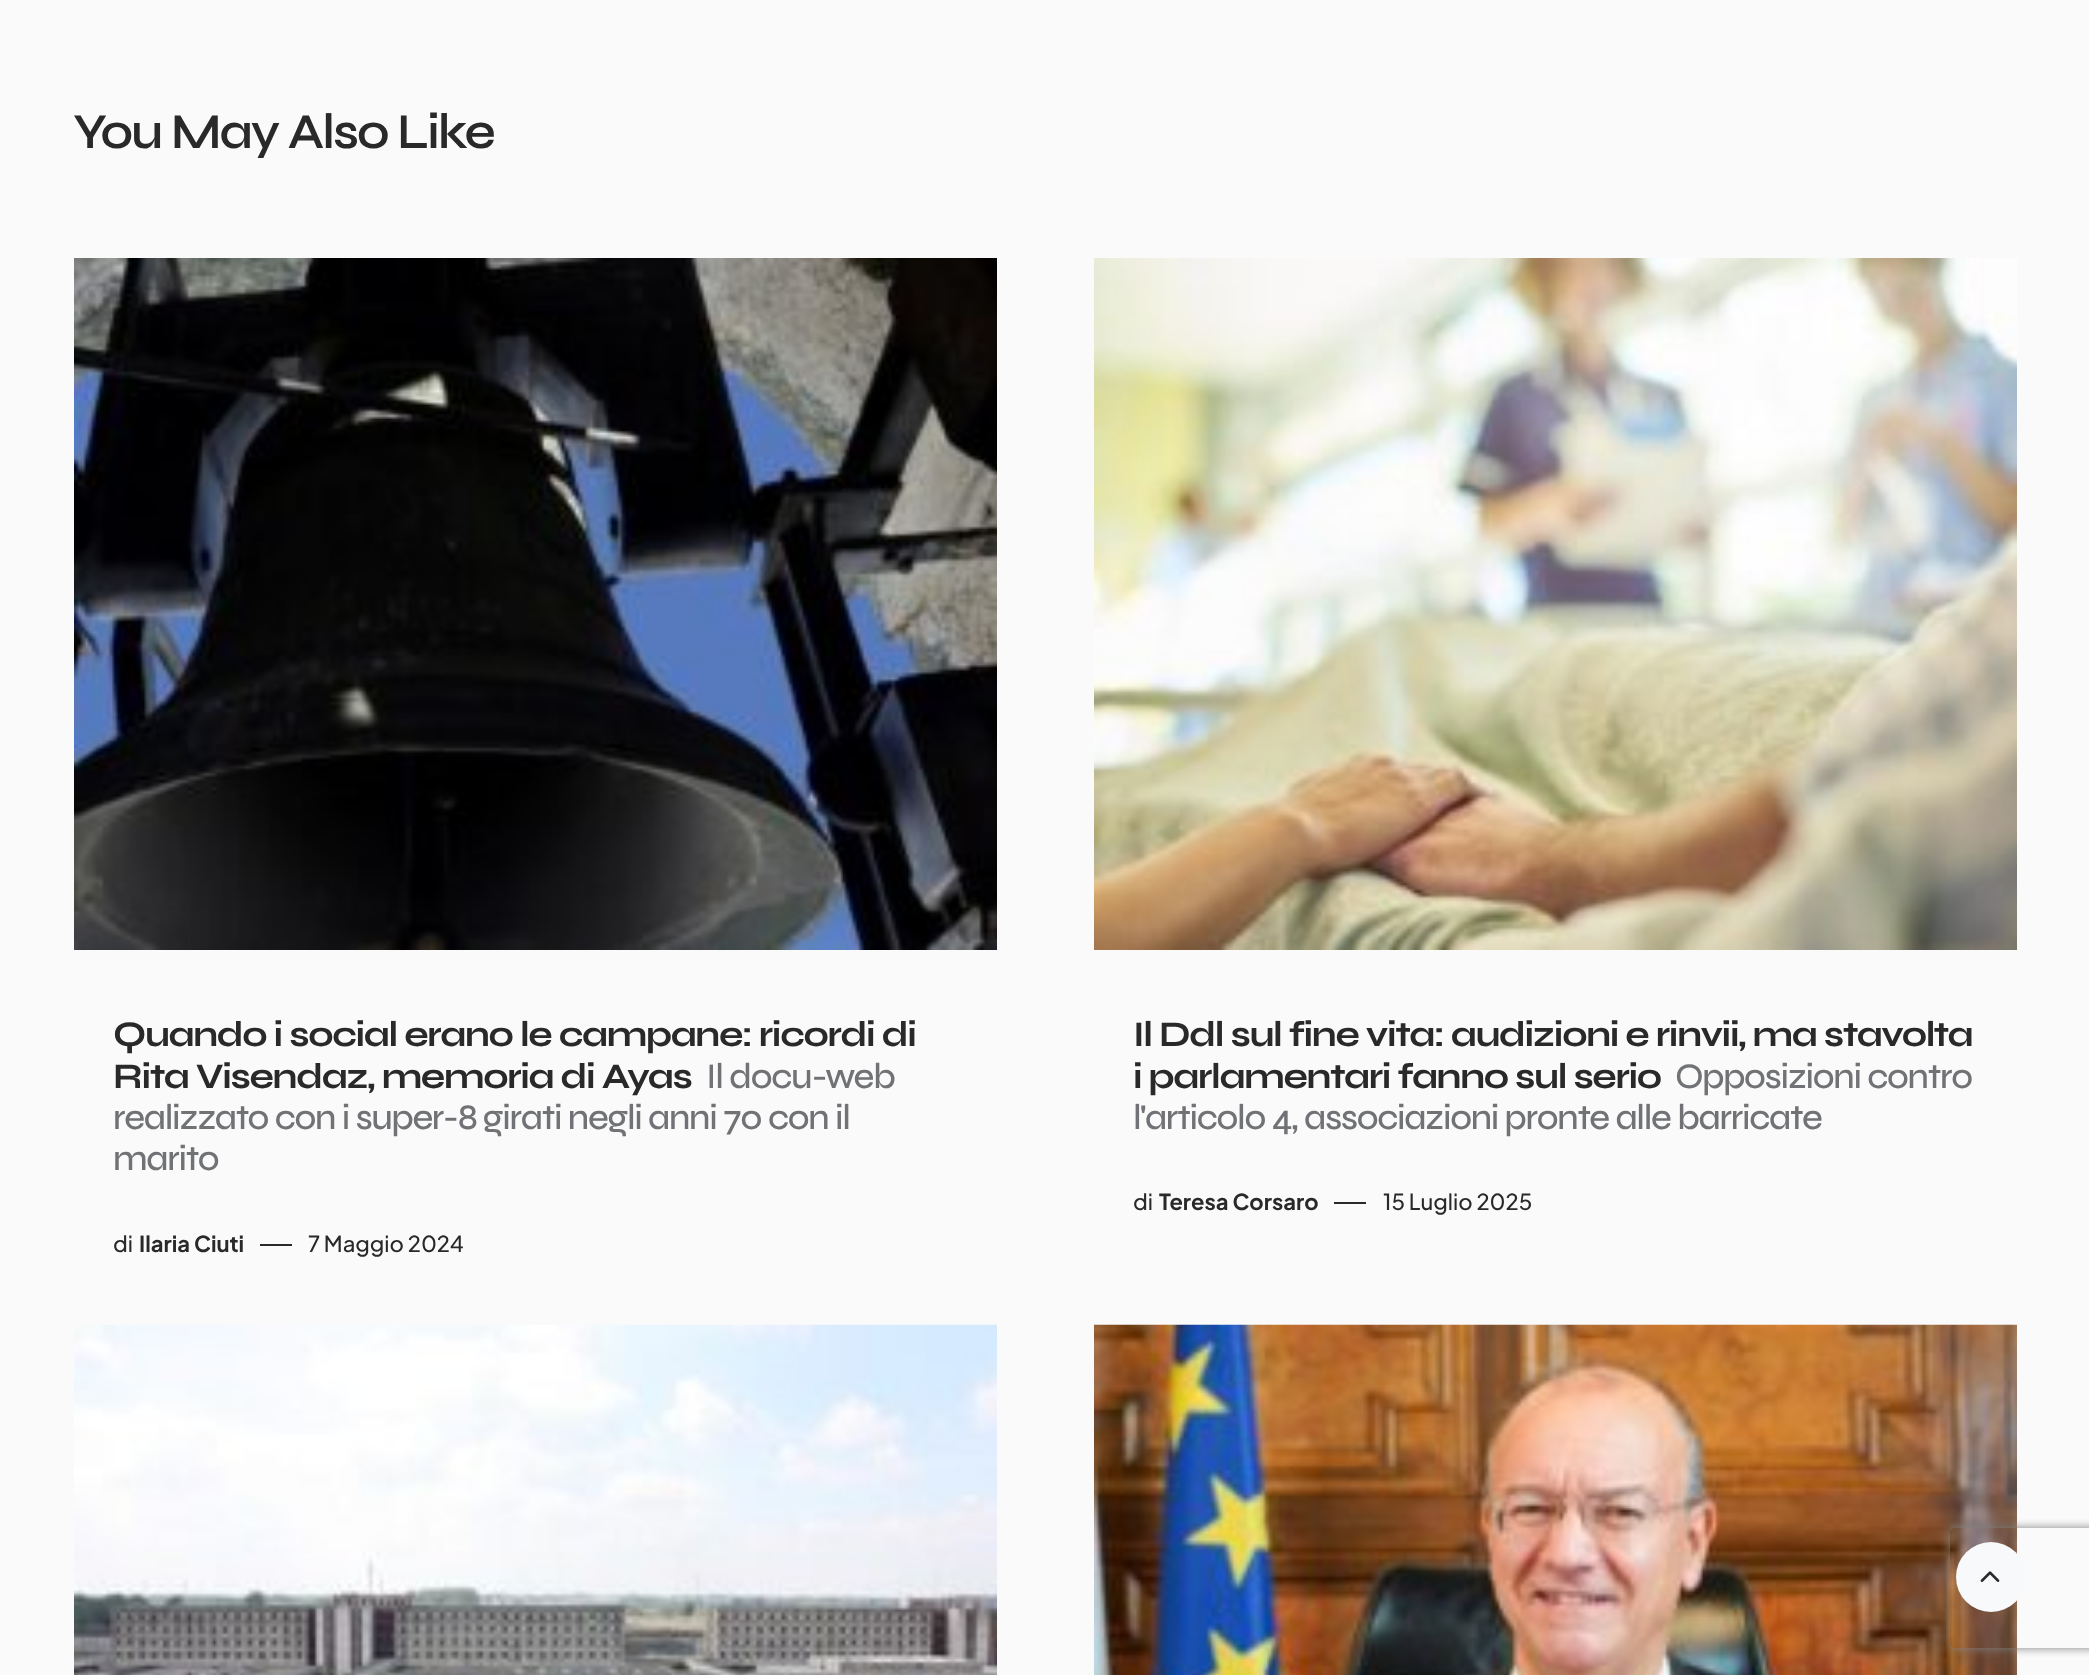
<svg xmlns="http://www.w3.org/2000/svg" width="2089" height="1675">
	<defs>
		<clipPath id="clip1"><path d="M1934 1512H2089V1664H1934ZM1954 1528H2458C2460 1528 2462 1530 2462 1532V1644C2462 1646 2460 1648 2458 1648H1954C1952 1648 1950 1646 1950 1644V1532C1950 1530 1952 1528 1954 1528Z" clip-rule="evenodd" /></clipPath>
	</defs>
	<rect width="100%" height="100%" fill="#FAFAFA" />
	<text x="73" y="148" font-family="Syne" font-size="50" font-weight="600" letter-spacing="-2" fill="#292929">You May Also Like</text>
	<image x="74" y="258" width="923" height="692" href="assets/img1.png" />
	<g font-family="Syne" font-size="36" font-weight="700" letter-spacing="-1.35" fill="#292929">
		<text x="113" y="1046">Quando i social erano le campane: ricordi di</text>
		<text x="113" y="1088">Rita Visendaz, memoria di Ayas</text>
	</g>
	<g font-family="Syne" font-size="36" font-weight="500" letter-spacing="-1.35" fill="#717275">
		<text x="706" y="1088">Il docu-web</text>
		<text x="113" y="1129">realizzato con i super-8 girati negli anni 70 con il</text>
		<text x="113" y="1170">marito</text>
	</g>
	<text x="113" y="1252" font-family="Plus Jakarta Sans" font-size="22" font-weight="500" fill="#292929">di</text>
	<text x="139" y="1252" font-family="Plus Jakarta Sans" font-size="22" font-weight="700" fill="#292929">Ilaria Ciuti</text>
	<rect x="260" y="1244" width="32" height="2" fill="#292929" />
	<text x="308" y="1252" font-family="Plus Jakarta Sans" font-size="22" font-weight="500" fill="#292929">7 Maggio 2024</text>
	<image x="1094" y="258" width="923" height="692" href="assets/img2.png" />
	<g font-family="Syne" font-size="36" font-weight="700" letter-spacing="-1.35" fill="#292929">
		<text x="1133" y="1046">Il Ddl sul fine vita: audizioni e rinvii, ma stavolta</text>
		<text x="1133" y="1088">i parlamentari fanno sul serio</text>
	</g>
	<g font-family="Syne" font-size="36" font-weight="500" letter-spacing="-1.35" fill="#717275">
		<text x="1675" y="1088">Opposizioni contro</text>
		<text x="1133" y="1129">l'articolo 4, associazioni pronte alle barricate</text>
	</g>
	<text x="1133" y="1210" font-family="Plus Jakarta Sans" font-size="22" font-weight="500" fill="#292929">di</text>
	<text x="1159" y="1210" font-family="Plus Jakarta Sans" font-size="22" font-weight="700" fill="#292929">Teresa Corsaro</text>
	<rect x="1334" y="1202" width="32" height="2" fill="#292929" />
	<text x="1383" y="1210" font-family="Plus Jakarta Sans" font-size="22" font-weight="500" fill="#292929">15 Luglio 2025</text>
	<image x="74" y="1324" width="923" height="351" href="assets/img3.png" />
	<image x="1094" y="1324" width="923" height="351" href="assets/img4.png" />
	<circle cx="1991" cy="1577" r="35" fill="#F8F9FA" />
	<image x="1980" y="1571" width="20" height="11" href="assets/img5.png" />
	<g clip-path="url(#clip1)">
		<rect x="1950" y="1528" width="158" height="120" rx="4" fill="#808080" filter="blur(5px)" />
	</g>
</svg>
